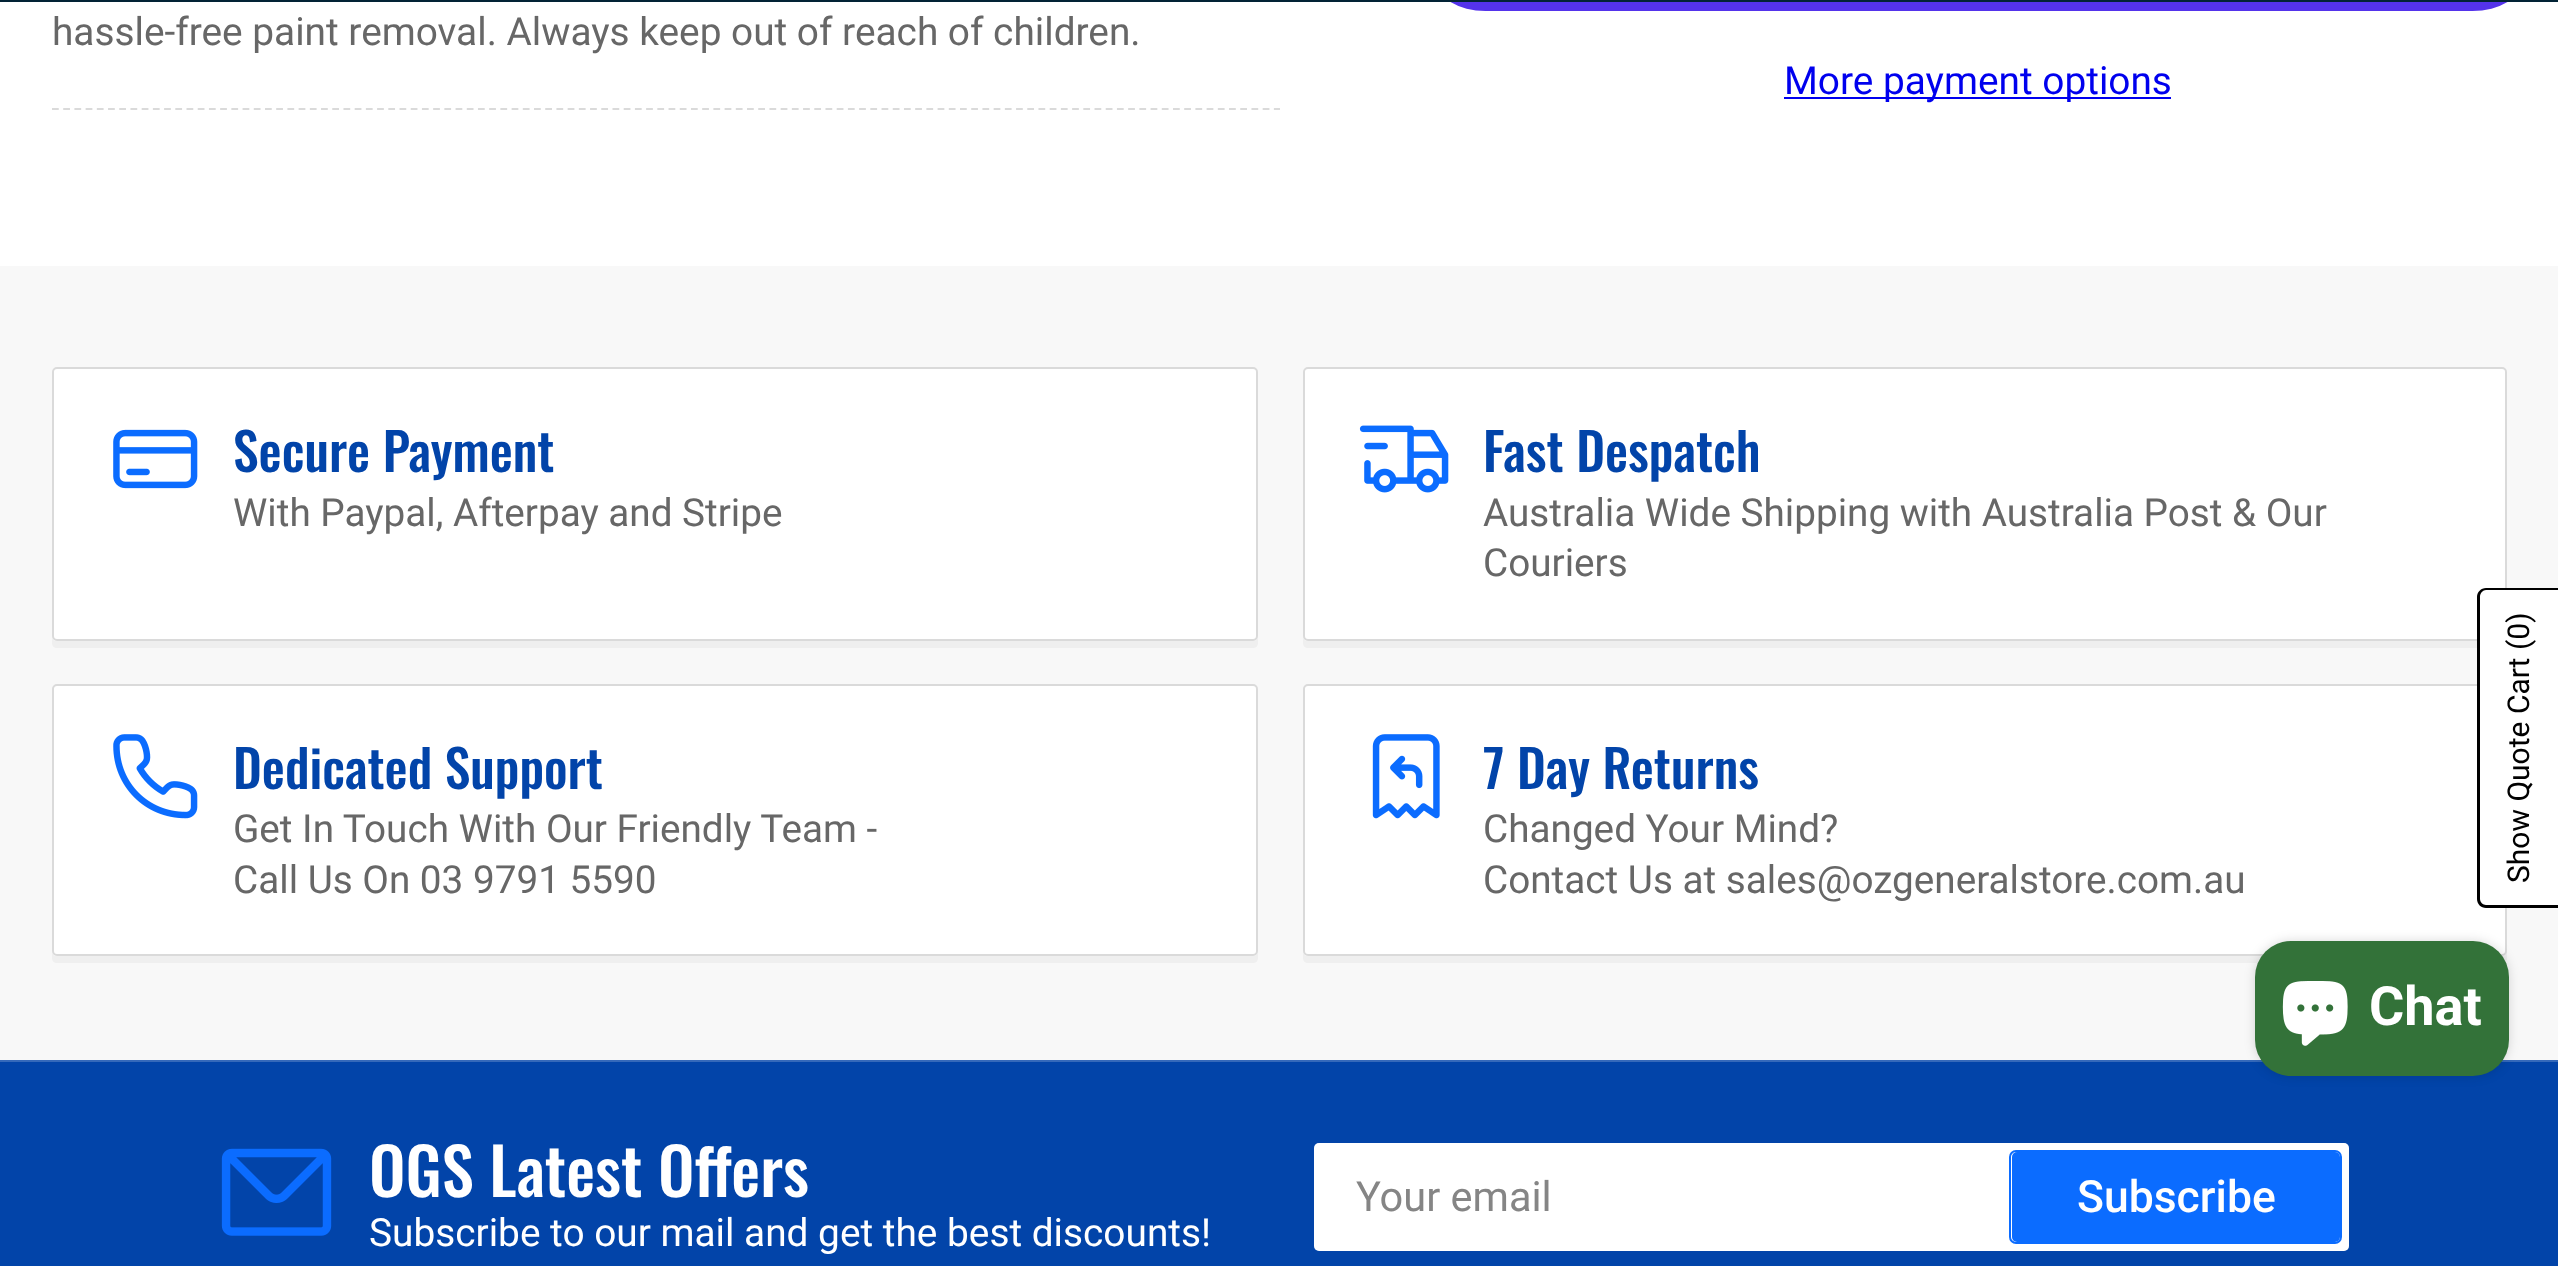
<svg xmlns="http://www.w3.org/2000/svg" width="2558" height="1266">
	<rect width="100%" height="100%" fill="#FFFFFF" />
	<rect x="1436" y="-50" width="1086" height="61" rx="49.5" fill="#5433EB" />
	<rect x="0" y="0" width="2558" height="2" fill="#022335" />
	<path d="M52 109H1280" fill="none" stroke="#DADADA" stroke-width="2.2" stroke-dasharray="6.75 4.46" />
	<text x="52" y="45" font-family="Roboto" font-size="38.8" fill="#676767">hassle-free paint removal. Always keep out of reach of children.</text>
	<rect x="1784" y="97" width="387" height="2" fill="#0000EE" />
	<text x="1784" y="94" font-family="Roboto" font-size="38.8" fill="#0000EE">More payment options</text>
	<rect x="0" y="266" width="2558" height="794" fill="#F8F8F8" />
	<path d="M52 638V643C52 646 54 648 57 648H1253C1256 648 1258 646 1258 643V377V637C1258 639 1256 641 1253 641H56C54 641 53 640 52 638Z" fill="#EFEFEF" />
	<rect x="53" y="368" width="1204" height="272" rx="4" fill="#FFFFFF" stroke="#DADADA" stroke-width="2" />
	<image x="113" y="429" width="85" height="60" href="assets/img1.png" />
	<text x="233" y="472" font-family="Oswald" font-size="51.75" font-weight="500" fill="#0244A9">Secure Payment</text>
	<text x="233" y="526" font-family="Roboto" font-size="38.7" fill="#676767">With Paypal, Afterpay and Stripe</text>
	<path d="M1303 638V643C1303 646 1305 648 1308 648H2502C2505 648 2507 646 2507 643V379L2506 377V637C2506 639 2504 641 2502 641H1307C1305 641 1304 640 1303 638Z" fill="#EFEFEF" />
	<rect x="1304" y="368" width="1202" height="272" rx="4" fill="#FFFFFF" stroke="#DADADA" stroke-width="2" />
	<image x="1359" y="425" width="90" height="68" href="assets/img2.png" />
	<text x="1483" y="472" font-family="Oswald" font-size="51.75" font-weight="500" fill="#0244A9">Fast Despatch</text>
	<g font-family="Roboto" font-size="38.7" fill="#676767">
		<text x="1483" y="526">Australia Wide Shipping with Australia Post &amp; Our</text>
		<text x="1483" y="576">Couriers</text>
	</g>
	<path d="M52 953V958C52 961 54 963 57 963H1253C1256 963 1258 961 1258 958V694V952C1258 954 1256 956 1253 956H56C54 956 53 955 52 953Z" fill="#EFEFEF" />
	<rect x="53" y="685" width="1204" height="270" rx="4" fill="#FFFFFF" stroke="#DADADA" stroke-width="2" />
	<image x="113" y="734" width="85" height="85" href="assets/img3.png" />
	<text x="233" y="789" font-family="Oswald" font-size="51.75" font-weight="500" fill="#0244A9">Dedicated Support</text>
	<g font-family="Roboto" font-size="38.7" fill="#676767">
		<text x="233" y="842">Get In Touch With Our Friendly Team -</text>
		<text x="233" y="893">Call Us On 03 9791 5590</text>
	</g>
	<path d="M1303 953V958C1303 961 1305 963 1308 963H2502C2505 963 2507 961 2507 958V696L2506 694V952C2506 954 2504 956 2502 956H1307C1305 956 1304 955 1303 953Z" fill="#EFEFEF" />
	<rect x="1304" y="685" width="1202" height="270" rx="4" fill="#FFFFFF" stroke="#DADADA" stroke-width="2" />
	<image x="1372" y="734" width="68" height="85" href="assets/img4.png" />
	<text x="1483" y="789" font-family="Oswald" font-size="51.75" font-weight="500" fill="#0244A9">7 Day Returns</text>
	<g font-family="Roboto" font-size="38.7" fill="#676767">
		<text x="1483" y="842">Changed Your Mind?</text>
		<text x="1483" y="893">Contact Us at sales@ozgeneralstore.com.au</text>
	</g>
	<rect x="0" y="1062" width="2558" height="204" fill="#0244A9" />
	<rect x="0" y="1060" width="2558" height="2" fill="#3569BA" />
	<image x="221" y="1148" width="111" height="88" href="assets/img5.png" />
	<text x="369" y="1197" font-family="Oswald" font-size="64.75" font-weight="500" fill="#FFFFFF">OGS Latest Offers</text>
	<text x="369" y="1246" font-family="Roboto" font-size="38.8" fill="#FFFFFF">Subscribe to our mail and get the best discounts!</text>
	<rect x="1314" y="1143" width="1035" height="108" rx="5" fill="#FFFFFF" />
	<rect x="1315" y="1144" width="1033" height="106" rx="4" fill="none" stroke="#FFFFFF" stroke-opacity="0.2" stroke-width="2" />
	<text x="1356" y="1211" font-family="Roboto" font-size="41.5" fill="#858585">Your email</text>
	<rect x="2010" y="1151" width="331" height="92" rx="6" fill="none" stroke="#0B6CFF" stroke-width="2" />
	<rect x="2012" y="1152" width="328" height="90" rx="5" fill="#0B6CFF" />
	<text x="2077" y="1212" font-family="Roboto" font-size="44.5" font-weight="500" fill="#FFFFFF">Subscribe</text>
	<path d="M2477 899V597C2477 592 2481 588 2486 588H2558V908H2486C2481 908 2477 904 2477 899Z" fill="#FFFFFF" />
	<path d="M2477 899V597C2477 592 2481 588 2486 588H2558V908H2486C2481 908 2477 904 2477 899ZM2480 899V597C2480 593 2483 590 2486 590H2558V905H2486C2483 905 2480 902 2480 899Z" fill="#000000" fill-rule="evenodd" />
	<g font-family="Roboto" font-size="30" fill="#000000">
		<text x="2529" y="650" transform="rotate(-90 2529 650)">(0)</text>
		<text x="2529" y="883" transform="rotate(-90 2529 883)">Show Quote Cart</text>
	</g>
	<rect x="2255" y="941" width="254" height="135" rx="36" fill="#000000" fill-opacity="0.15" filter="blur(5.5px)" />
	<rect x="2255" y="941" width="254" height="135" rx="36" fill="#337239" />
	<image x="2282" y="981" width="66" height="65" href="assets/img6.png" />
	<text x="2369" y="1025" font-family="Roboto" font-size="54" font-weight="700" fill="#FFFFFF">Chat</text>
</svg>
